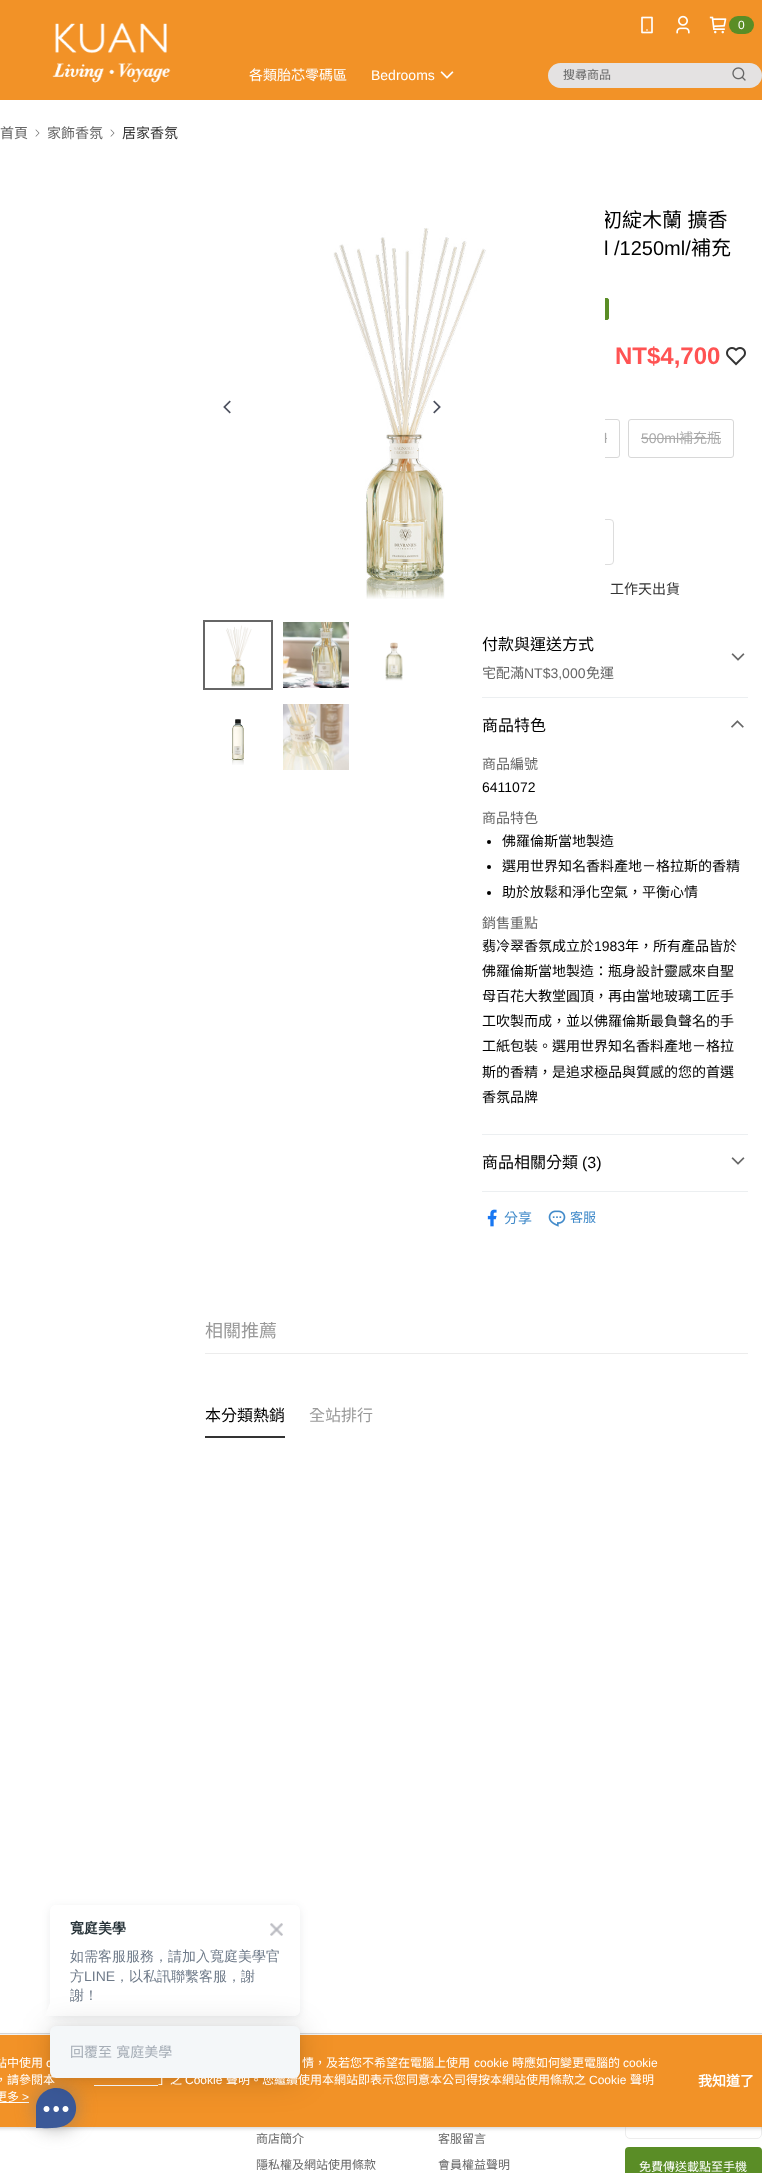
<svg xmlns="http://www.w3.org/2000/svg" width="762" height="2173">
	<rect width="100%" height="100%" fill="#FFFFFF" />
	<rect x="0" y="0" width="762" height="100" fill="#F29227" />
	<image x="52" y="23" width="119" height="60" href="assets/img1.png" />
	<image x="641" y="16" width="12" height="18" href="assets/img2.png" />
	<image x="676" y="15" width="14" height="19" href="assets/img3.png" />
	<image x="709" y="16" width="18" height="18" href="assets/img4.png" />
	<rect x="729" y="16" width="25" height="18" rx="9" fill="#5A8D26" />
	<text x="738" y="29" font-family="Liberation Sans" font-size="12" fill="#FFFFFF">0</text>
	<text x="249" y="80" font-family="Noto Sans CJK TC" font-size="14" fill="#FFFFFF">各類胎芯零碼區</text>
	<text x="371" y="80" font-family="Liberation Sans" font-size="14" fill="#FFFFFF">Bedrooms</text>
	<image x="440" y="71" width="14" height="8" href="assets/img5.png" />
	<rect x="548" y="63" width="214" height="25" rx="12.5" fill="#E4E2E2" />
	<text x="563" y="79" font-family="Noto Sans CJK TC" font-size="12" fill="#666666">搜尋商品</text>
	<image x="732" y="67" width="14" height="14" href="assets/img6.png" />
	<text x="0" y="138" font-family="Noto Sans CJK TC" font-size="14" fill="#666666">首頁</text>
	<image x="35" y="129" width="5" height="8" href="assets/img7.png" />
	<text x="47" y="138" font-family="Noto Sans CJK TC" font-size="14" fill="#666666">家飾香氛</text>
	<image x="110" y="129" width="5" height="8" href="assets/img7.png" />
	<text x="122" y="138" font-family="Noto Sans CJK TC" font-size="14" fill="#333333">居家香氛</text>
	<image x="223" y="400" width="8" height="14" href="assets/img8.png" />
	<text x="602" y="227" word-spacing="1" font-family="Noto Sans CJK TC" font-size="20" fill="#000000">初綻木蘭 擴香</text>
	<rect x="482.5" y="298.5" width="126" height="21" rx="1.5" fill="#5A8D26" stroke="#5A8D26" />
	<rect x="556.5" y="419.5" width="63" height="38" rx="2.5" fill="none" stroke="#D8D8D8" />
	<rect x="482.5" y="519.5" width="131" height="45" rx="3.5" fill="none" stroke="#DDDDDD" />
	<image x="333" y="209" width="272" height="390" href="assets/img9.png" />
	<image x="433" y="400" width="8" height="14" href="assets/img10.png" />
	<image x="226" y="625" width="26" height="62" href="assets/img11.png" />
	<rect x="204" y="621" width="68" height="68" fill="none" stroke="#666666" stroke-width="2" />
	<image x="283" y="622" width="66" height="66" href="assets/img12.png" />
	<image x="385" y="642" width="18" height="39" href="assets/img13.png" />
	<image x="232" y="719" width="12" height="46" href="assets/img14.png" />
	<image x="283" y="704" width="66" height="66" href="assets/img15.png" />
	<text x="604" y="255" font-family="Liberation Sans" font-size="20" fill="#000000">l /1250ml/</text>
	<text x="691" y="255" font-family="Noto Sans CJK TC" font-size="20" fill="#000000">補充</text>
	<text x="615" y="364" font-family="Liberation Sans" font-size="24" font-weight="700" fill="#FF5353">NT$4,700</text>
	<image x="726" y="347" width="20" height="19" href="assets/img16.png" />
	<text x="604" y="443" font-family="Liberation Sans" font-size="14" fill="#AAAAAA">l</text>
	<rect x="605" y="438" width="2" height="1" fill="#AAAAAA" />
	<rect x="628.5" y="419.5" width="105" height="38" rx="2.5" fill="none" stroke="#D8D8D8" />
	<text x="641" y="443" font-family="Liberation Sans" font-size="14" fill="#AAAAAA">500ml</text>
	<rect x="641" y="438" width="80" height="1" fill="#AAAAAA" />
	<text x="679" y="443" font-family="Noto Sans CJK TC" font-size="14" fill="#AAAAAA">補充瓶</text>
	<text x="610" y="594" font-family="Noto Sans CJK TC" font-size="14" fill="#333333">工作天出貨</text>
	<rect x="482" y="697" width="266" height="1" fill="#ECEFF1" />
	<text x="482" y="650" font-family="Noto Sans CJK TC" font-size="16" fill="#000000">付款與運送方式</text>
	<text x="482" y="678" font-family="Noto Sans CJK TC" font-size="14" fill="#666666">宅配滿</text>
	<text x="524" y="678" font-family="Liberation Sans" font-size="14" fill="#666666">NT$3,000</text>
	<text x="586" y="678" font-family="Noto Sans CJK TC" font-size="14" fill="#666666">免運</text>
	<image x="731" y="653" width="14" height="8" href="assets/img17.png" />
	<rect x="482" y="1134" width="266" height="1" fill="#ECEFF1" />
	<text x="482" y="731" font-family="Noto Sans CJK TC" font-size="16" fill="#000000">商品特色</text>
	<image x="731" y="720" width="13" height="8" href="assets/img18.png" />
	<text x="482" y="769" font-family="Noto Sans CJK TC" font-size="14" fill="#666666">商品編號</text>
	<text x="482" y="792" font-family="Liberation Sans" font-size="14" fill="#000000">6411072</text>
	<text x="482" y="823" font-family="Noto Sans CJK TC" font-size="14" fill="#666666">商品特色</text>
	<circle cx="489" cy="842" r="2" fill="#000000" />
	<text x="502" y="846" font-family="Noto Sans CJK TC" font-size="14" fill="#000000">佛羅倫斯當地製造</text>
	<circle cx="489" cy="867" r="2" fill="#000000" />
	<text x="502" y="871" font-family="Noto Sans CJK TC" font-size="14" fill="#000000">選用世界知名香料產地－格拉斯的香精</text>
	<circle cx="489" cy="893" r="2" fill="#000000" />
	<text x="502" y="897" font-family="Noto Sans CJK TC" font-size="14" fill="#000000">助於放鬆和淨化空氣，平衡心情</text>
	<text x="482" y="928" font-family="Noto Sans CJK TC" font-size="14" fill="#666666">銷售重點</text>
	<text x="482" y="951" font-family="Noto Sans CJK TC" font-size="14" fill="#000000">翡冷翠香氛成立於</text>
	<text x="594" y="951" font-family="Liberation Sans" font-size="14" fill="#000000">1983</text>
	<g font-family="Noto Sans CJK TC" font-size="14" fill="#000000">
		<text x="625" y="951">年，所有產品皆於</text>
		<text x="482" y="976">佛羅倫斯當地製造：瓶身設計靈感來自聖</text>
		<text x="482" y="1001">母百花大教堂圓頂，再由當地玻璃工匠手</text>
		<text x="482" y="1026">工吹製而成，並以佛羅倫斯最負聲名的手</text>
		<text x="482" y="1051">工紙包裝。選用世界知名香料產地－格拉</text>
		<text x="482" y="1077">斯的香精，是追求極品與質感的您的首選</text>
		<text x="482" y="1102">香氛品牌</text>
	</g>
	<rect x="482" y="1191" width="266" height="1" fill="#ECEFF1" />
	<text x="482" y="1168" font-family="Noto Sans CJK TC" font-size="16" fill="#000000">商品相關分類</text>
	<text x="582" y="1168" font-family="Liberation Sans" font-size="16" fill="#000000">(3)</text>
	<image x="731" y="1157" width="14" height="8" href="assets/img17.png" />
	<image x="487" y="1209" width="10" height="18" href="assets/img19.png" />
	<text x="504" y="1223" font-family="Noto Sans CJK TC" font-size="14" fill="#428BCA">分享</text>
	<image x="548" y="1210" width="18" height="17" href="assets/img20.png" />
	<text x="570" y="1222" font-family="Noto Sans CJK TC" font-size="13" fill="#428BCA">客服</text>
	<rect x="205" y="1353" width="543" height="1" fill="#ECECEC" />
	<text x="205" y="1337" font-family="Noto Sans CJK TC" font-size="18" fill="#999999">相關推薦</text>
	<rect x="205" y="1436" width="80" height="2" fill="#333333" />
	<text x="205" y="1421" font-family="Noto Sans CJK TC" font-size="16" fill="#000000">本分類熱銷</text>
	<text x="309" y="1421" font-family="Noto Sans CJK TC" font-size="16" fill="#999999">全站排行</text>
	<rect x="0" y="2033" width="762" height="1" fill="#DADADA" />
	<g font-family="Noto Sans CJK TC" font-size="12" fill="#666666">
		<text x="256" y="2143">商店簡介</text>
		<text x="256" y="2169">隱私權及網站使用條款</text>
		<text x="438" y="2143">客服留言</text>
		<text x="438" y="2169">會員權益聲明</text>
	</g>
	<rect x="625.5" y="2099.5" width="136" height="39" rx="4.5" fill="none" stroke="#EDEDED" />
	<rect x="625" y="2147" width="137" height="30" rx="4" fill="#5A8D26" />
	<text x="639" y="2171" font-family="Noto Sans CJK TC" font-size="12" fill="#FFFFFF">免費傳送載點至手機</text>
	<rect x="50" y="1907" width="250" height="111" rx="6" fill="#232F35" fill-opacity="0.09" filter="blur(4px)" />
	<path d="M56 1905H294C297.5 1905 300 1907.5 300 1911V2010C300 2013.5 297.5 2016 294 2016H50V1911C50 1907.5 52.5 1905 56 1905Z" fill="#FFFFFF" />
	<text x="70" y="1933" font-family="WenQuanYi Zen Hei" font-size="14" font-weight="700" fill="#263238">寬庭美學</text>
	<image x="270" y="1923" width="13" height="13" href="assets/img21.png" />
	<g font-family="WenQuanYi Zen Hei" font-size="14" font-weight="500" fill="#6E7A89">
		<text x="70" y="1961">如需客服服務，請加入寬庭美學官</text>
		<text x="70" y="1981">方</text>
	</g>
	<text x="84" y="1981" font-family="Liberation Sans" font-size="14" fill="#6E7A89">LINE</text>
	<g font-family="WenQuanYi Zen Hei" font-size="14" font-weight="500" fill="#6E7A89">
		<text x="115" y="1981">，以私訊聯繫客服，謝</text>
		<text x="70" y="2000">謝！</text>
	</g>
	<path d="M50 2016H45L50 2003Z" fill="#FFFFFF" />
	<rect x="-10" y="2036" width="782" height="92" rx="4" fill="#979797" fill-opacity="0.5" filter="blur(2px)" />
	<rect x="0" y="2035" width="762" height="92" fill="#F29227" />
	<rect x="94" y="2085" width="64" height="1" fill="#FFFFFF" />
	<rect x="0" y="2102" width="29" height="1" fill="#FFFFFF" />
	<rect x="36" y="2088" width="40" height="40" rx="20" fill="#777777" fill-opacity="0.64" filter="blur(10px)" />
	<path d="M56 2088C45 2088 36 2097 36 2108V2128C44 2128 57 2129 64 2126C84 2118 78 2088 56 2088Z" fill="#3B5998" />
	<path d="M65.5 2106C61.5 2106 61.5 2112 65.5 2112C69.5 2112 69.5 2106 65.5 2106ZM46.5 2106C42.5 2106 42.5 2112 46.5 2112C50.5 2112 50.5 2106 46.5 2106Z" fill="#FFFFFF" />
	<path d="M56 2106C52.5 2106 52.5 2112 56 2112C60 2112 60 2106 56 2106Z" fill="#FFFFFF" />
	<rect x="50" y="2028" width="250" height="52" rx="6" fill="#000000" fill-opacity="0.16" filter="blur(16px)" />
	<rect x="50" y="2027" width="250" height="52" rx="6" fill="#000000" fill-opacity="0.06" filter="blur(3px)" />
	<text x="46" y="2067" font-family="Liberation Sans" font-size="12" fill="#FFFFFF">c</text>
	<g font-family="Noto Sans CJK TC" font-size="12" fill="#FFFFFF">
		<text x="-5" y="2084">，請參閱本</text>
		<text x="158" y="2084">」之</text>
	</g>
	<text x="185" y="2084" font-family="Liberation Sans" font-size="12" fill="#FFFFFF">Cookie</text>
	<text x="226" y="2084" font-family="Noto Sans CJK TC" font-size="12" fill="#FFFFFF">聲明。您繼續使用本網站即表示您同意本公司得按本網站使用條款之</text>
	<rect x="50" y="2026" width="250" height="52" rx="6" fill="#F4F7F9" />
	<text x="70" y="2057" word-spacing="1" font-family="Noto Sans CJK TC" font-size="14" fill="#A5ADB6">回覆至 寬庭美學</text>
	<g font-family="Noto Sans CJK TC" font-size="12" fill="#FFFFFF">
		<text x="-5" y="2067">站中使用</text>
		<text x="302" y="2067">情，及若您不希望在電腦上使用</text>
	</g>
	<text x="474" y="2067" font-family="Liberation Sans" font-size="12" fill="#FFFFFF">cookie</text>
	<text x="512" y="2067" font-family="Noto Sans CJK TC" font-size="12" fill="#FFFFFF">時應如何變更電腦的</text>
	<g font-family="Liberation Sans" font-size="12" fill="#FFFFFF">
		<text x="623" y="2067">cookie</text>
		<text x="589" y="2084">Cookie</text>
	</g>
	<g font-family="Noto Sans CJK TC" font-size="12" fill="#FFFFFF">
		<text x="630" y="2084">聲明</text>
		<text x="-5" y="2101">更多</text>
	</g>
	<text x="22" y="2101" font-family="Liberation Sans" font-size="12" fill="#FFFFFF">&gt;</text>
	<text x="698" y="2086" font-family="Noto Sans CJK TC" font-size="14" font-weight="700" fill="#FFFFFF">我知道了</text>
</svg>
